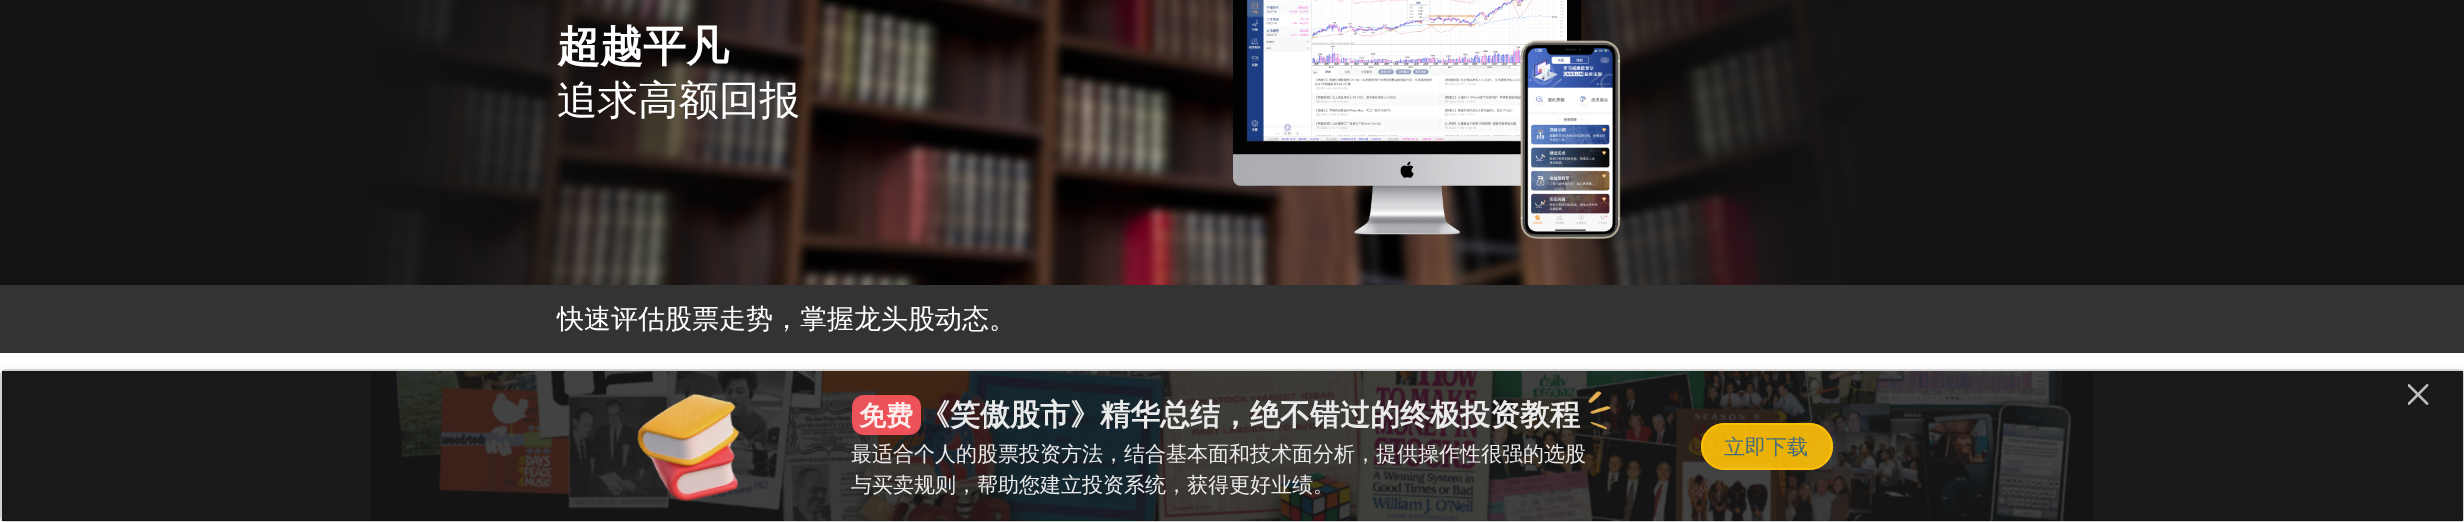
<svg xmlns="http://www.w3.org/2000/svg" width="2464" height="522">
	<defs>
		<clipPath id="clip1"><path d="M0 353H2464V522H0ZM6 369H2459C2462.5 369 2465 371.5 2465 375V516C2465 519.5 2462.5 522 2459 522H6C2.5 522 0 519.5 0 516V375C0 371.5 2.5 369 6 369Z" clip-rule="evenodd" /></clipPath>
	</defs>
	<rect width="100%" height="100%" fill="#FFFFFF" />
	<image x="0" y="0" width="2464" height="285" href="assets/img1.png" />
	<text x="557" y="61" font-family="WenQuanYi Zen Hei" font-size="43" font-weight="700" fill="#FFFFFF">超越平凡</text>
	<text x="557" y="114" font-family="WenQuanYi Zen Hei" font-size="40.5" font-weight="500" fill="#FFFFFF">追求高额回报</text>
	<image x="1233" y="0" width="388" height="239" href="assets/img2.png" />
	<rect x="0" y="285" width="2464" height="68" fill="#333333" />
	<text x="557" y="328" font-family="WenQuanYi Zen Hei" font-size="27" font-weight="500" fill="#FFFFFF">快速评估股票走势，掌握龙头股动态。</text>
	<g clip-path="url(#clip1)">
		<rect x="0" y="377" width="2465" height="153" rx="6" fill="#000000" fill-opacity="0.15" filter="blur(7.5px)" />
	</g>
	<rect x="1" y="370" width="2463" height="151" rx="5" fill="none" stroke="#000000" stroke-opacity="0.18" stroke-width="2" />
	<rect x="2" y="371" width="2461" height="150" fill="#000000" fill-opacity="0.9" />
	<image x="371" y="371" width="1722" height="150" href="assets/img3.png" />
	<image x="2408" y="384" width="21" height="21" href="assets/img4.png" />
	<image x="637" y="394" width="103" height="108" href="assets/img5.png" />
	<rect x="852" y="395" width="69" height="40" rx="12" fill="#FF585F" fill-opacity="0.9" />
	<text x="859" y="425" font-family="WenQuanYi Zen Hei" font-size="27" font-weight="700" fill="#FDEEEE">免费</text>
	<text x="920" y="425" font-family="WenQuanYi Zen Hei" font-size="30" font-weight="700" fill="#EAEAEA">《笑傲股市》精华总结，绝不错过的终极投资教程</text>
	<image x="1588" y="391" width="23" height="38" href="assets/img6.png" />
	<g font-family="WenQuanYi Zen Hei" font-size="21" font-weight="500" fill="#EAEAEA">
		<text x="851" y="461">最适合个人的股票投资方法，结合基本面和技术面分析，提供操作性很强的选股</text>
		<text x="851" y="492">与买卖规则，帮助您建立投资系统，获得更好业绩。</text>
	</g>
	<rect x="1701" y="423" width="132" height="47" rx="23.5" fill="#FFC107" fill-opacity="0.9" />
	<rect x="1702" y="424" width="130" height="45" rx="22.5" fill="none" stroke="#FFC107" stroke-opacity="0.9" stroke-width="2" />
	<text x="1724" y="454" font-family="WenQuanYi Zen Hei" font-size="21" font-weight="500" fill="#456B7C">立即下载</text>
</svg>
